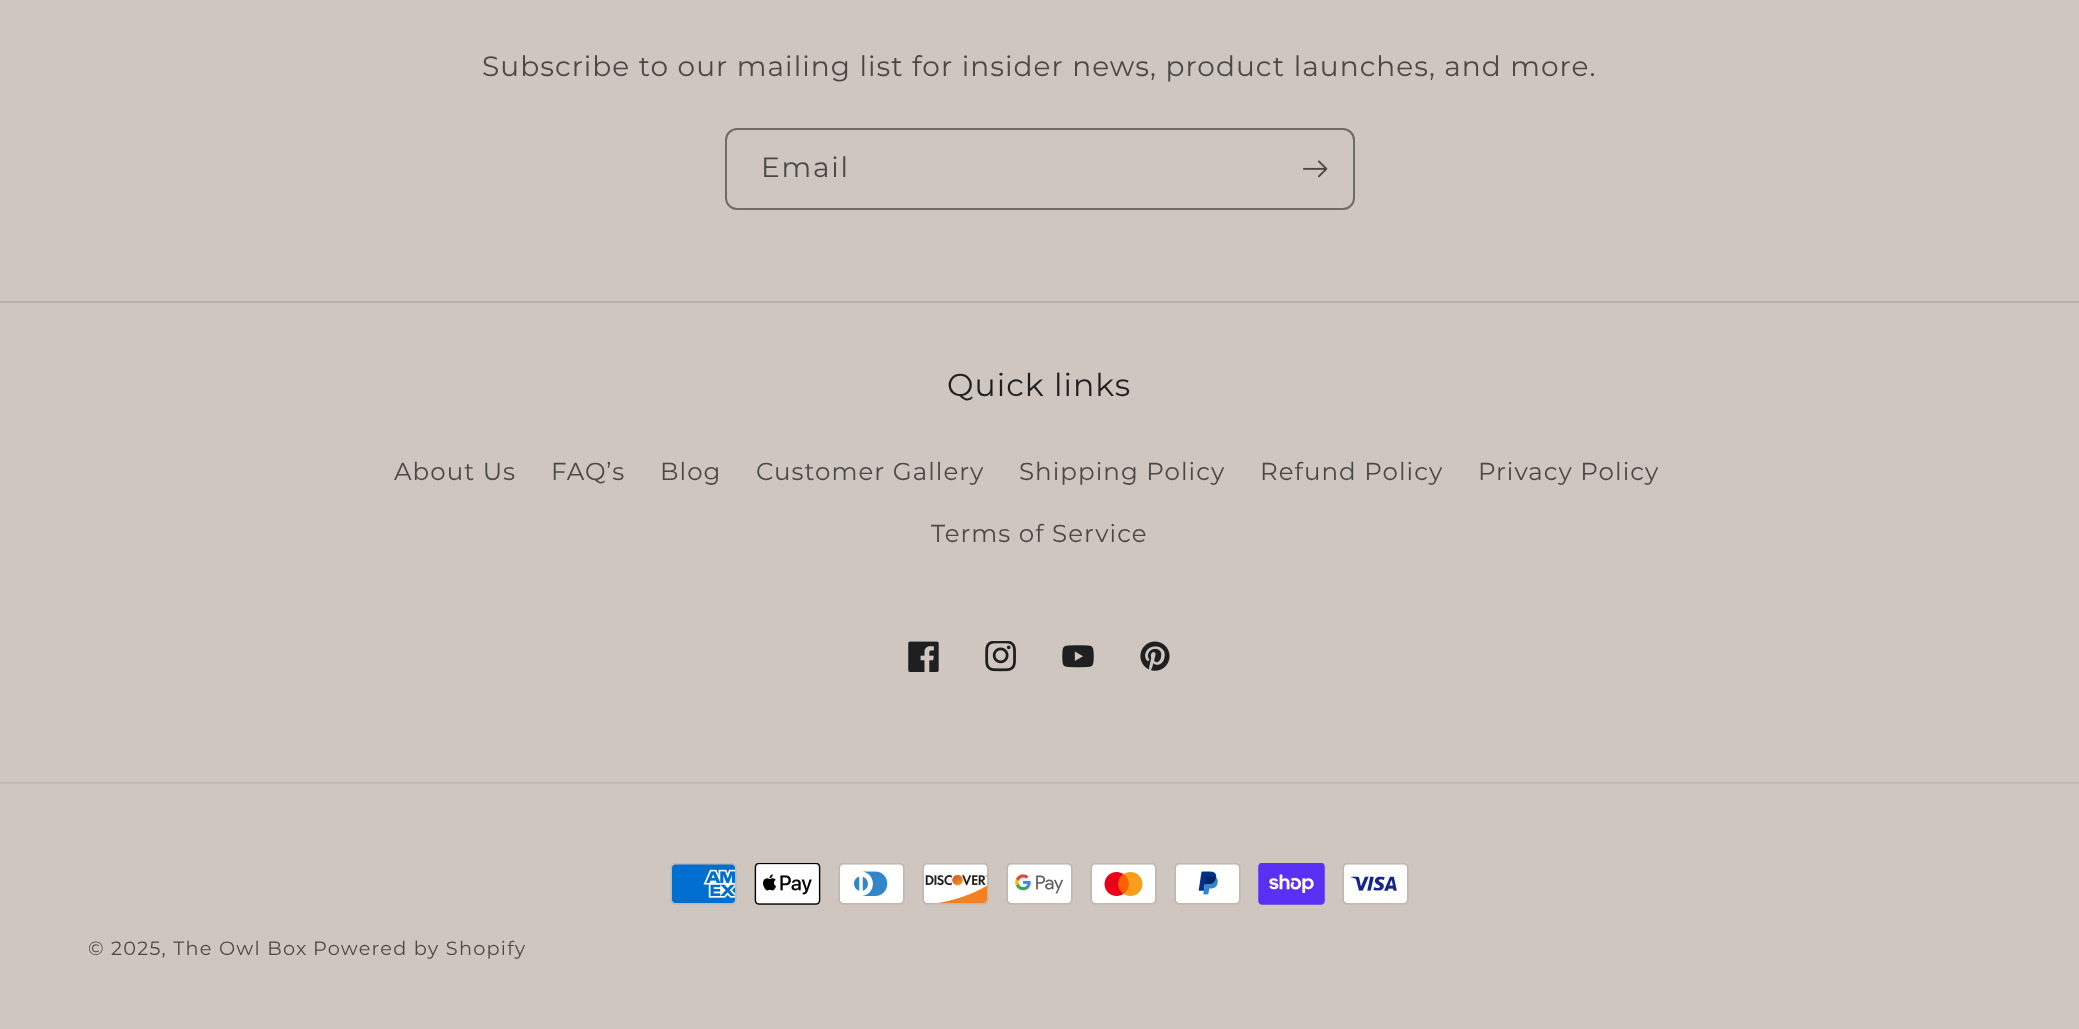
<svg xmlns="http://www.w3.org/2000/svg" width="2079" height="1029">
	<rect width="100%" height="100%" fill="#CFC7BF" />
	<rect x="0" y="301" width="2079" height="2" fill="#B4AEA7" />
	<text x="482" y="76" font-family="Montserrat" font-size="28" letter-spacing="1.05" fill="#4A4949">Subscribe to our mailing list for insider news, product launches, and more.</text>
	<rect x="726" y="129" width="628" height="80" rx="11" fill="none" stroke="#6E6B68" stroke-width="2" />
	<text x="761" y="177" font-family="Montserrat" font-size="28" letter-spacing="1.75" fill="#4A4949">Email</text>
	<image x="1303" y="160" width="25" height="18" href="assets/img1.png" />
	<text x="947" y="396" font-family="Montserrat" font-size="31.5" letter-spacing="1.05" fill="#1E1F21">Quick links</text>
	<g font-family="Montserrat" font-size="24.5" letter-spacing="1.05" fill="#4A4949">
		<text x="394" y="480">About Us</text>
		<text x="551" y="480">FAQ’s</text>
		<text x="660" y="480">Blog</text>
		<text x="756" y="480">Customer Gallery</text>
		<text x="1019" y="480">Shipping Policy</text>
		<text x="1260" y="480">Refund Policy</text>
		<text x="1478" y="480">Privacy Policy</text>
		<text x="931" y="542">Terms of Service</text>
	</g>
	<image x="908" y="641" width="31" height="31" href="assets/img2.png" />
	<image x="985" y="641" width="31" height="31" href="assets/img3.png" />
	<image x="1062" y="645" width="32" height="23" href="assets/img4.png" />
	<image x="1140" y="641" width="30" height="30" href="assets/img5.png" />
	<rect x="0" y="782" width="2079" height="2" fill="#C1BAB2" />
	<image x="670" y="863" width="67" height="42" href="assets/img6.png" />
	<image x="754" y="863" width="67" height="42" href="assets/img7.png" />
	<image x="838" y="863" width="67" height="42" href="assets/img8.png" />
	<image x="922" y="863" width="67" height="42" href="assets/img9.png" />
	<image x="1006" y="863" width="67" height="42" href="assets/img10.png" />
	<image x="1090" y="863" width="67" height="42" href="assets/img11.png" />
	<image x="1174" y="863" width="67" height="42" href="assets/img12.png" />
	<image x="1258" y="863" width="67" height="42" href="assets/img13.png" />
	<image x="1342" y="863" width="67" height="42" href="assets/img14.png" />
	<g font-family="Montserrat" font-size="19.25" letter-spacing="1.25" fill="#4A4949">
		<text x="88" y="955">© 2025, The Owl Box</text>
		<text x="313" y="955">Powered by Shopify</text>
	</g>
</svg>
